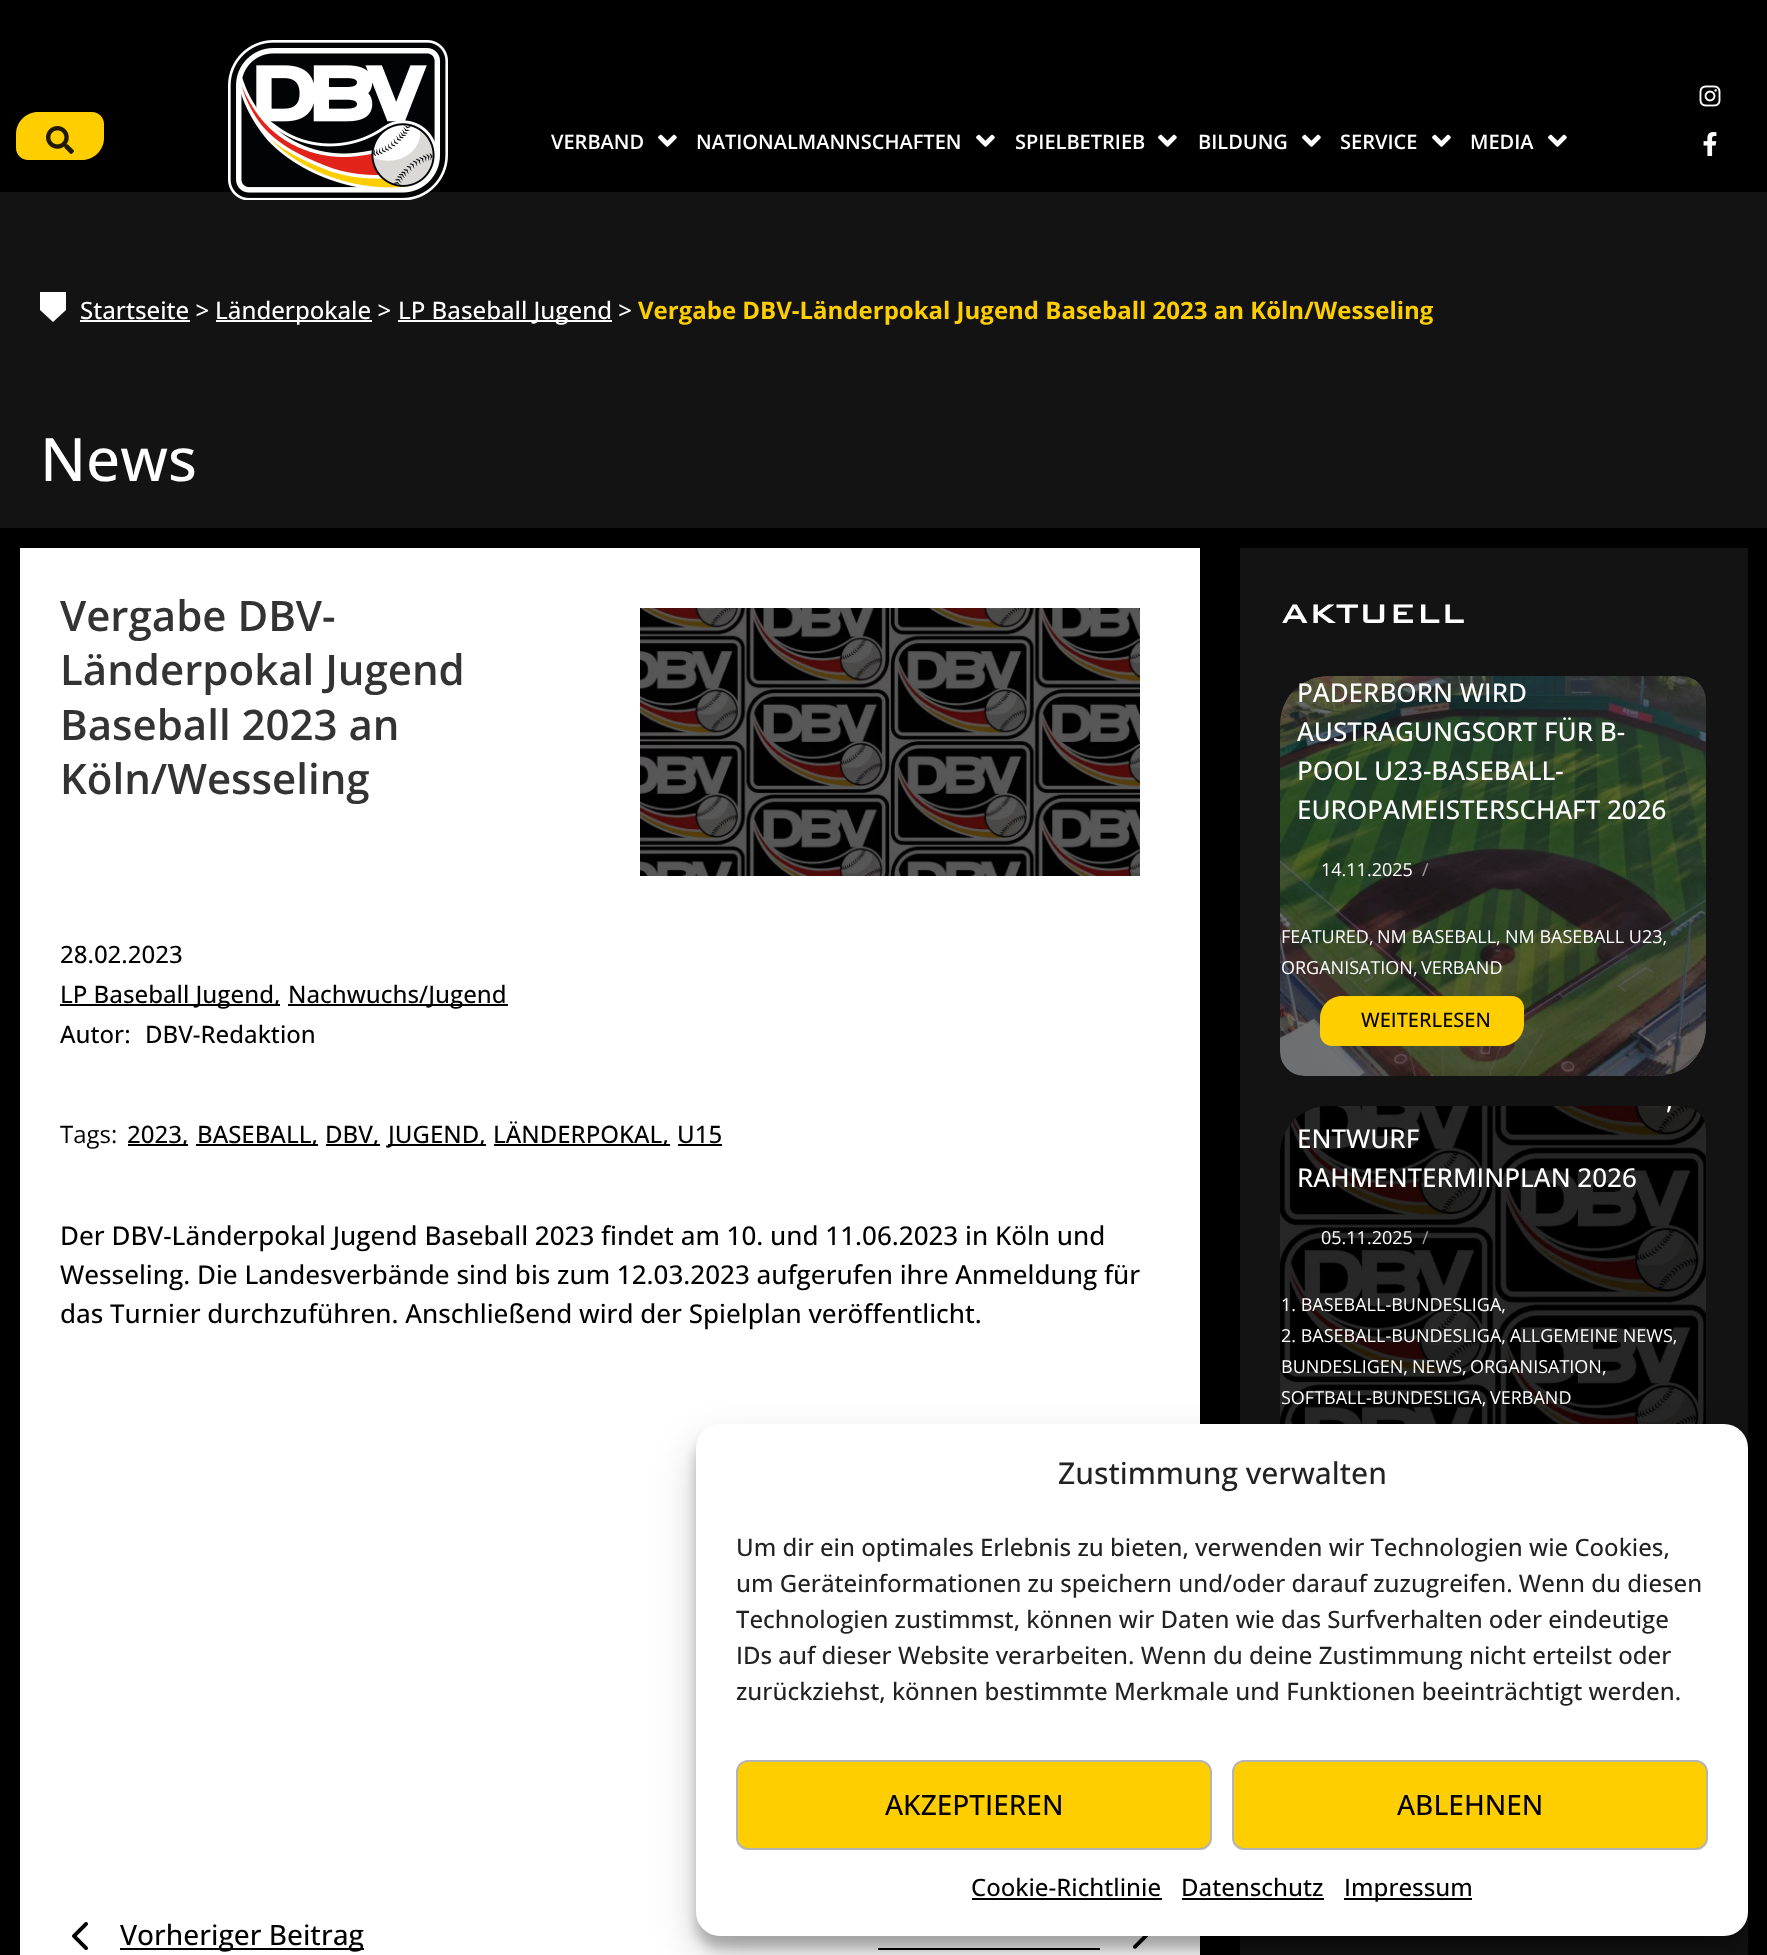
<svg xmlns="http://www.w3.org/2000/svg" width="1767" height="1955">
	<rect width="100%" height="100%" fill="#000000" />
	<path d="M38 112H92C98.5 112 104 117.5 104 124V138C104 150 94 160 82 160H28C21.5 160 16 154.5 16 148V134C16 122 26 112 38 112Z" fill="#FFCE00" />
	<image x="46" y="126" width="28" height="28" href="assets/img1.png" />
	<rect x="0" y="192" width="1767" height="336" fill="#131313" />
	<image x="228" y="40" width="220" height="160" href="assets/img2.png" />
	<text x="551" y="149" font-family="Open Sans" font-size="20" font-weight="600" fill="#FFFFFF">VERBAND</text>
	<image x="658" y="134" width="19" height="13" href="assets/img3.png" />
	<text x="696" y="149" font-family="Open Sans" font-size="20" font-weight="600" fill="#FFFFFF">NATIONALMANNSCHAFTEN</text>
	<image x="976" y="134" width="19" height="13" href="assets/img3.png" />
	<text x="1015" y="149" font-family="Open Sans" font-size="20" font-weight="600" fill="#FFFFFF">SPIELBETRIEB</text>
	<image x="1158" y="134" width="19" height="13" href="assets/img3.png" />
	<text x="1198" y="149" font-family="Open Sans" font-size="20" font-weight="600" fill="#FFFFFF">BILDUNG</text>
	<image x="1302" y="134" width="19" height="13" href="assets/img3.png" />
	<text x="1340" y="149" font-family="Open Sans" font-size="20" font-weight="600" fill="#FFFFFF">SERVICE</text>
	<image x="1432" y="134" width="19" height="13" href="assets/img3.png" />
	<text x="1470" y="149" font-family="Open Sans" font-size="20" font-weight="600" fill="#FFFFFF">MEDIA</text>
	<image x="1548" y="134" width="19" height="13" href="assets/img3.png" />
	<image x="1699" y="85" width="22" height="22" href="assets/img4.png" />
	<image x="1703" y="132" width="14" height="24" href="assets/img5.png" />
	<rect x="40" y="292" width="26" height="18" fill="#FFFFFF" />
	<path d="M53 322L40 310H66Z" fill="#FFFFFF" />
	<text x="80" y="319" font-family="Open Sans" font-size="24" font-weight="500" fill="#FFFFFF">Startseite &gt;</text>
	<rect x="80" y="320" width="110" height="2" fill="#FFFFFF" />
	<rect x="216" y="320" width="156" height="2" fill="#FFFFFF" />
	<text x="215" y="319" font-family="Open Sans" font-size="24" font-weight="500" fill="#FFFFFF">Länderpokale &gt;</text>
	<rect x="398" y="320" width="214" height="2" fill="#FFFFFF" />
	<text x="398" y="319" font-family="Open Sans" font-size="24" font-weight="500" fill="#FFFFFF">LP Baseball Jugend &gt;</text>
	<text x="638" y="319" font-family="Open Sans" font-size="24" font-weight="700" fill="#FFCE00">Vergabe DBV-Länderpokal Jugend Baseball 2023 an Köln/Wesseling</text>
	<text x="40" y="481" font-family="Open Sans" font-size="60" font-weight="500" fill="#FFFFFF">News</text>
	<rect x="20" y="548" width="1180" height="1407" fill="#FFFFFF" />
	<g font-family="Open Sans" font-size="42" font-weight="600" fill="#333333">
		<text x="60" y="631">Vergabe DBV-</text>
		<text x="60" y="685">Länderpokal Jugend</text>
		<text x="60" y="740">Baseball 2023 an</text>
		<text x="60" y="794">Köln/Wesseling</text>
	</g>
	<image x="640" y="608" width="500" height="268" href="assets/img6.png" />
	<text x="60" y="963" font-family="Open Sans" font-size="24" font-weight="500" fill="#000000">28.02.2023</text>
	<rect x="60" y="1004" width="220" height="2" fill="#000000" />
	<text x="60" y="1003" font-family="Open Sans" font-size="24" font-weight="500" fill="#000000">LP Baseball Jugend,</text>
	<rect x="288" y="1004" width="220" height="2" fill="#000000" />
	<g font-family="Open Sans" font-size="24" font-weight="500" fill="#000000">
		<text x="288" y="1003">Nachwuchs/Jugend</text>
		<text x="60" y="1043">Autor:</text>
		<text x="145" y="1043">DBV-Redaktion</text>
	</g>
	<text x="60" y="1143" font-family="Open Sans" font-size="24" fill="#000000">Tags:</text>
	<rect x="128" y="1144" width="60" height="2" fill="#000000" />
	<text x="127" y="1143" font-family="Open Sans" font-size="24" font-weight="500" fill="#000000">2023,</text>
	<rect x="196" y="1144" width="122" height="2" fill="#000000" />
	<text x="197" y="1143" font-family="Open Sans" font-size="24" font-weight="500" fill="#000000">BASEBALL,</text>
	<rect x="326" y="1144" width="54" height="2" fill="#000000" />
	<text x="325" y="1143" font-family="Open Sans" font-size="24" font-weight="500" fill="#000000">DBV,</text>
	<rect x="388" y="1144" width="98" height="2" fill="#000000" />
	<text x="388" y="1143" font-family="Open Sans" font-size="24" font-weight="500" fill="#000000">JUGEND,</text>
	<rect x="494" y="1144" width="176" height="2" fill="#000000" />
	<g font-family="Open Sans" font-size="24" font-weight="500" fill="#000000">
		<text x="493" y="1143">LÄNDERPOKAL,</text>
		<text x="677" y="1143">U15</text>
	</g>
	<rect x="678" y="1144" width="44" height="2" fill="#000000" />
	<g font-family="Open Sans" font-size="26" font-weight="500" fill="#000000">
		<text x="60" y="1245">Der DBV-Länderpokal Jugend Baseball 2023 findet am 10. und 11.06.2023 in Köln und</text>
		<text x="60" y="1284">Wesseling. Die Landesverbände sind bis zum 12.03.2023 aufgerufen ihre Anmeldung für</text>
		<text x="60" y="1323">das Turnier durchzuführen. Anschließend wird der Spielplan veröffentlicht.</text>
	</g>
	<image x="72" y="1922" width="16" height="28" href="assets/img7.png" />
	<rect x="120" y="1948" width="244" height="2" fill="#000000" />
	<text x="120" y="1945" font-family="Open Sans" font-size="28" font-weight="500" fill="#000000">Vorheriger Beitrag</text>
	<rect x="878" y="1948" width="222" height="2" fill="#000000" />
	<image x="1133" y="1936" width="15" height="13" href="assets/img8.png" />
	<rect x="1240" y="548" width="508" height="1407" fill="#131313" />
	<text x="1281" y="623" font-family="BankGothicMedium" font-size="36" font-weight="500" fill="#FFFFFF">AKTUELL</text>
	<image x="1280" y="676" width="426" height="400" href="assets/img9.png" />
	<path d="M1328 676H1682C1695.5 676 1706 686.5 1706 700V1028C1706 1054.5 1684.5 1076 1658 1076H1304C1290.5 1076 1280 1065.5 1280 1052V724C1280 697.5 1301.5 676 1328 676Z" fill="#000000" fill-opacity="0.55" />
	<g font-family="Open Sans" font-size="26" font-weight="500" fill="#FFFFFF">
		<text x="1297" y="702">PADERBORN WIRD</text>
		<text x="1297" y="741">AUSTRAGUNGSORT FÜR B-</text>
		<text x="1297" y="780">POOL U23-BASEBALL-</text>
		<text x="1297" y="819">EUROPAMEISTERSCHAFT 2026</text>
	</g>
	<text x="1321" y="876" font-family="Open Sans" font-size="18" fill="#FFFFFF">14.11.2025</text>
	<text x="1422" y="876" font-family="Open Sans" font-size="18" fill="#9C9C9C">/</text>
	<g font-family="Open Sans" font-size="18" fill="#FFFFFF">
		<text x="1281" y="943">FEATURED,</text>
		<text x="1377" y="943">NM BASEBALL,</text>
		<text x="1505" y="943">NM BASEBALL U23,</text>
		<text x="1281" y="974">ORGANISATION,</text>
		<text x="1421" y="974">VERBAND</text>
	</g>
	<path d="M1342 996H1512C1518.5 996 1524 1001.5 1524 1008V1024C1524 1036 1514 1046 1502 1046H1332C1325.5 1046 1320 1040.5 1320 1034V1018C1320 1006 1330 996 1342 996Z" fill="#FFCE00" />
	<text x="1361" y="1027" font-family="Open Sans" font-size="20" font-weight="500" fill="#000000">WEITERLESEN</text>
	<image x="1280" y="1106" width="426" height="318" href="assets/img10.png" />
	<path d="M1328 1106H1682C1695.5 1106 1706 1116.5 1706 1130V1458C1706 1484.5 1684.5 1506 1658 1506H1304C1290.5 1506 1280 1495.5 1280 1482V1154C1280 1127.5 1301.5 1106 1328 1106Z" fill="#000000" fill-opacity="0.55" />
	<g font-family="Open Sans" font-size="26" font-weight="500" fill="#FFFFFF">
		<text x="1666" y="1109">,</text>
		<text x="1297" y="1148">ENTWURF</text>
		<text x="1297" y="1187">RAHMENTERMINPLAN 2026</text>
	</g>
	<text x="1321" y="1244" font-family="Open Sans" font-size="18" fill="#FFFFFF">05.11.2025</text>
	<text x="1422" y="1244" font-family="Open Sans" font-size="18" fill="#9C9C9C">/</text>
	<g font-family="Open Sans" font-size="18" fill="#FFFFFF">
		<text x="1281" y="1311">1. BASEBALL-BUNDESLIGA,</text>
		<text x="1281" y="1342">2. BASEBALL-BUNDESLIGA,</text>
		<text x="1510" y="1342">ALLGEMEINE NEWS,</text>
		<text x="1281" y="1373">BUNDESLIGEN,</text>
		<text x="1412" y="1373">NEWS,</text>
		<text x="1470" y="1373">ORGANISATION,</text>
		<text x="1281" y="1404">SOFTBALL-BUNDESLIGA,</text>
		<text x="1490" y="1404">VERBAND</text>
	</g>
	<rect x="696" y="1436" width="1052" height="512" rx="24" fill="#000000" fill-opacity="0.23" filter="blur(6px)" />
	<rect x="696" y="1444" width="1052" height="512" rx="24" fill="#000000" fill-opacity="0.19" filter="blur(20px)" />
	<rect x="696" y="1424" width="1052" height="512" rx="24" fill="#FFFFFF" />
	<text x="1058" y="1484" font-family="Open Sans" font-size="30" font-weight="500" fill="#222222">Zustimmung verwalten</text>
	<g font-family="Open Sans" font-size="24" font-weight="500" fill="#222222">
		<text x="736" y="1556">Um dir ein optimales Erlebnis zu bieten, verwenden wir Technologien wie Cookies,</text>
		<text x="736" y="1592">um Geräteinformationen zu speichern und/oder darauf zuzugreifen. Wenn du diesen</text>
		<text x="736" y="1628">Technologien zustimmst, können wir Daten wie das Surfverhalten oder eindeutige</text>
		<text x="736" y="1664">IDs auf dieser Website verarbeiten. Wenn du deine Zustimmung nicht erteilst oder</text>
		<text x="736" y="1700">zurückziehst, können bestimmte Merkmale und Funktionen beeinträchtigt werden.</text>
	</g>
	<rect x="737" y="1761" width="474" height="88" rx="11" fill="#FFCE00" stroke="#B4B4B4" stroke-width="2" />
	<text x="885" y="1815" font-family="Open Sans" font-size="28" font-weight="500" fill="#000000">AKZEPTIEREN</text>
	<rect x="1233" y="1761" width="474" height="88" rx="11" fill="#FFCE00" stroke="#B4B4B4" stroke-width="2" />
	<text x="1397" y="1815" font-family="Open Sans" font-size="28" font-weight="500" fill="#000000">ABLEHNEN</text>
	<text x="971" y="1896" font-family="Open Sans" font-size="24" font-weight="500" fill="#000000">Cookie-Richtlinie</text>
	<rect x="972" y="1898" width="190" height="2" fill="#000000" />
	<text x="1181" y="1896" font-family="Open Sans" font-size="24" font-weight="500" fill="#000000">Datenschutz</text>
	<rect x="1182" y="1898" width="142" height="2" fill="#000000" />
	<rect x="1344" y="1898" width="128" height="2" fill="#000000" />
	<text x="1344" y="1896" font-family="Open Sans" font-size="24" font-weight="500" fill="#000000">Impressum</text>
</svg>
